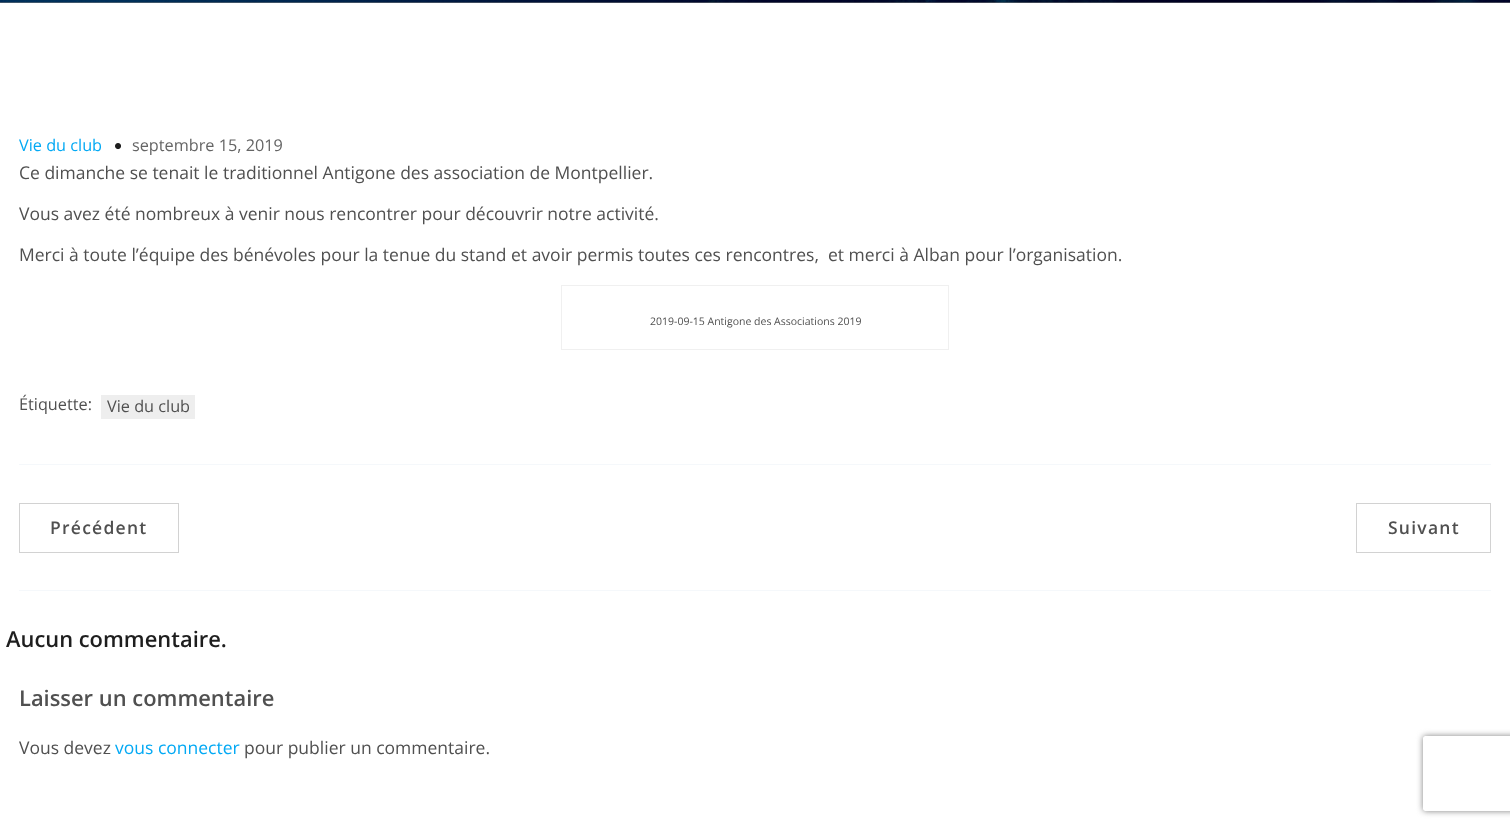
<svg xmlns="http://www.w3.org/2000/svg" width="1510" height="828">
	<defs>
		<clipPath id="clip1"><path d="M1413 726H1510V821H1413ZM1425.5 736H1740.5C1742 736 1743 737 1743 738.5V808.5C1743 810 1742 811 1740.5 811H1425.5C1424 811 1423 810 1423 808.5V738.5C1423 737 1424 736 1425.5 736Z" clip-rule="evenodd" /></clipPath>
	</defs>
	<rect width="100%" height="100%" fill="#FFFFFF" />
	<rect x="0" y="2" width="1510" height="1" fill="#808080" />
	<image x="0" y="0" width="1510" height="3" href="assets/img1.png" />
	<text x="19" y="151" font-family="Open Sans" font-size="16.25" fill="#03A9F4">Vie du club</text>
	<image x="115" y="143" width="6" height="7" href="assets/img2.png" />
	<text x="132" y="151" font-family="Open Sans" font-size="16.25" fill="#656565">septembre 15, 2019</text>
	<g font-family="Open Sans" font-size="17.5" fill="#505050">
		<text x="19" y="179">Ce dimanche se tenait le traditionnel Antigone des association de Montpellier.</text>
		<text x="19" y="220">Vous avez été nombreux à venir nous rencontrer pour découvrir notre activité.</text>
		<text x="19" y="261" xml:space="preserve">Merci à toute l’équipe des bénévoles pour la tenue du stand et avoir permis toutes ces rencontres,  et merci à Alban pour l’organisation.</text>
	</g>
	<rect x="561.5" y="285.5" width="387" height="64" fill="none" stroke="#F0F0F0" />
	<text x="650" y="325" font-family="Open Sans" font-size="10.5" fill="#505050">2019-09-15 Antigone des Associations 2019</text>
	<text x="19" y="410" font-family="Open Sans" font-size="16.25" fill="#505050">Étiquette:</text>
	<rect x="101" y="395" width="94" height="24" fill="#EEEEEE" />
	<text x="107" y="412" font-family="Open Sans" font-size="16.25" fill="#505050">Vie du club</text>
	<rect x="19" y="464" width="1472" height="1" fill="#F5F8FB" />
	<rect x="19" y="590" width="1472" height="1" fill="#F5F8FB" />
	<rect x="19.5" y="503.5" width="159" height="49" fill="none" stroke="#D2D2D2" />
	<text x="50" y="534" font-family="Open Sans" font-size="17.5" font-weight="600" letter-spacing="1.25" fill="#505050">Précédent</text>
	<rect x="1356.5" y="503.5" width="134" height="49" fill="none" stroke="#D2D2D2" />
	<text x="1388" y="534" font-family="Open Sans" font-size="17.5" font-weight="600" letter-spacing="1.25" fill="#505050">Suivant</text>
	<text x="6" y="647" font-family="Open Sans" font-size="21.9" font-weight="600" fill="#1E1E1E">Aucun commentaire.</text>
	<text x="19" y="706" font-family="Open Sans" font-size="21.9" font-weight="600" fill="#505050">Laisser un commentaire</text>
	<text x="19" y="754" font-family="Open Sans" font-size="17.5" fill="#505050">Vous devez</text>
	<text x="115" y="754" font-family="Open Sans" font-size="17.5" fill="#03A9F4">vous connecter</text>
	<text x="244" y="754" font-family="Open Sans" font-size="17.5" fill="#505050">pour publier un commentaire.</text>
	<g clip-path="url(#clip1)">
		<rect x="1423" y="736" width="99" height="75" rx="2.5" fill="#808080" filter="blur(3px)" />
	</g>
</svg>
